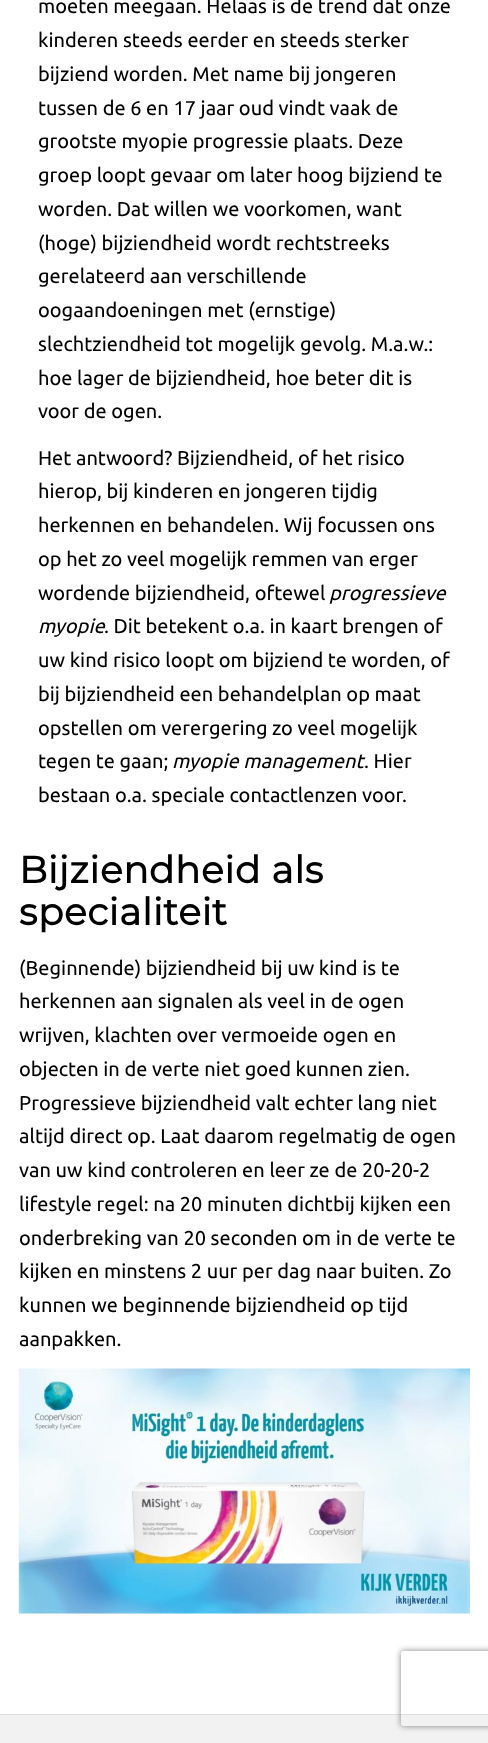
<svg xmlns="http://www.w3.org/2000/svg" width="488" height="1743">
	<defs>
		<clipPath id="clip1"><path d="M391 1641H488V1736H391ZM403.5 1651H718.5C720 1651 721 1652 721 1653.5V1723.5C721 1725 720 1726 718.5 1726H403.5C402 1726 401 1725 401 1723.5V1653.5C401 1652 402 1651 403.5 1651Z" clip-rule="evenodd" /></clipPath>
	</defs>
	<rect width="100%" height="100%" fill="#FFFFFF" />
	<g font-family="Ubuntu" font-size="20" fill="#000000">
		<text x="38" y="13">moeten meegaan. Helaas is de trend dat onze</text>
		<text x="38" y="47">kinderen steeds eerder en steeds sterker</text>
		<text x="38" y="81">bijziend worden. Met name bij jongeren</text>
		<text x="38" y="115">tussen de 6 en 17 jaar oud vindt vaak de</text>
		<text x="38" y="148">grootste myopie progressie plaats. Deze</text>
		<text x="38" y="182">groep loopt gevaar om later hoog bijziend te</text>
		<text x="38" y="216">worden. Dat willen we voorkomen, want</text>
		<text x="38" y="250">(hoge) bijziendheid wordt rechtstreeks</text>
		<text x="38" y="283">gerelateerd aan verschillende</text>
		<text x="38" y="317">oogaandoeningen met (ernstige)</text>
		<text x="38" y="351">slechtziendheid tot mogelijk gevolg. M.a.w.:</text>
		<text x="38" y="385">hoe lager de bijziendheid, hoe beter dit is</text>
		<text x="38" y="418">voor de ogen.</text>
		<text x="38" y="465">Het antwoord? Bijziendheid, of het risico</text>
		<text x="38" y="498">hierop, bij kinderen en jongeren tijdig</text>
		<text x="38" y="532">herkennen en behandelen. Wij focussen ons</text>
		<text x="38" y="566">op het zo veel mogelijk remmen van erger</text>
		<text x="38" y="600">wordende bijziendheid, oftewel</text>
	</g>
	<g font-family="Ubuntu" font-size="20" font-style="italic" fill="#000000">
		<text x="329" y="600">progressieve</text>
		<text x="38" y="633">myopie</text>
	</g>
	<g font-family="Ubuntu" font-size="20" fill="#000000">
		<text x="104" y="633">. Dit betekent o.a. in kaart brengen of</text>
		<text x="38" y="667">uw kind risico loopt om bijziend te worden, of</text>
		<text x="38" y="701">bij bijziendheid een behandelplan op maat</text>
		<text x="38" y="735">opstellen om verergering zo veel mogelijk</text>
		<text x="38" y="768">tegen te gaan;</text>
	</g>
	<text x="172" y="768" font-family="Ubuntu" font-size="20" font-style="italic" fill="#000000">myopie management</text>
	<g font-family="Ubuntu" font-size="20" fill="#000000">
		<text x="364" y="768">. Hier</text>
		<text x="38" y="802">bestaan o.a. speciale contactlenzen voor.</text>
	</g>
	<g font-family="Montserrat" font-size="37.5" font-weight="700" letter-spacing="0.6" fill="#000000">
		<text x="19" y="883">Bijziendheid als</text>
		<text x="19" y="925">specialiteit</text>
	</g>
	<g font-family="Ubuntu" font-size="20" fill="#000000">
		<text x="19" y="975">(Beginnende) bijziendheid bij uw kind is te</text>
		<text x="19" y="1008">herkennen aan signalen als veel in de ogen</text>
		<text x="19" y="1042">wrijven, klachten over vermoeide ogen en</text>
		<text x="19" y="1076">objecten in de verte niet goed kunnen zien.</text>
		<text x="19" y="1110">Progressieve bijziendheid valt echter lang niet</text>
		<text x="19" y="1143">altijd direct op. Laat daarom regelmatig de ogen</text>
		<text x="19" y="1177">van uw kind controleren en leer ze de 20-20-2</text>
		<text x="19" y="1211">lifestyle regel: na 20 minuten dichtbij kijken een</text>
		<text x="19" y="1245">onderbreking van 20 seconden om in de verte te</text>
		<text x="19" y="1278">kijken en minstens 2 uur per dag naar buiten. Zo</text>
		<text x="19" y="1312">kunnen we beginnende bijziendheid op tijd</text>
		<text x="19" y="1346">aanpakken.</text>
	</g>
	<image x="18" y="1368" width="452" height="246" href="assets/img1.png" />
	<rect x="0" y="1715" width="488" height="28" fill="#F2F2F2" />
	<rect x="0" y="1714" width="488" height="1" fill="#DEDEDE" />
	<g clip-path="url(#clip1)">
		<rect x="401" y="1651" width="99" height="75" rx="2.5" fill="#808080" filter="blur(3px)" />
	</g>
</svg>
